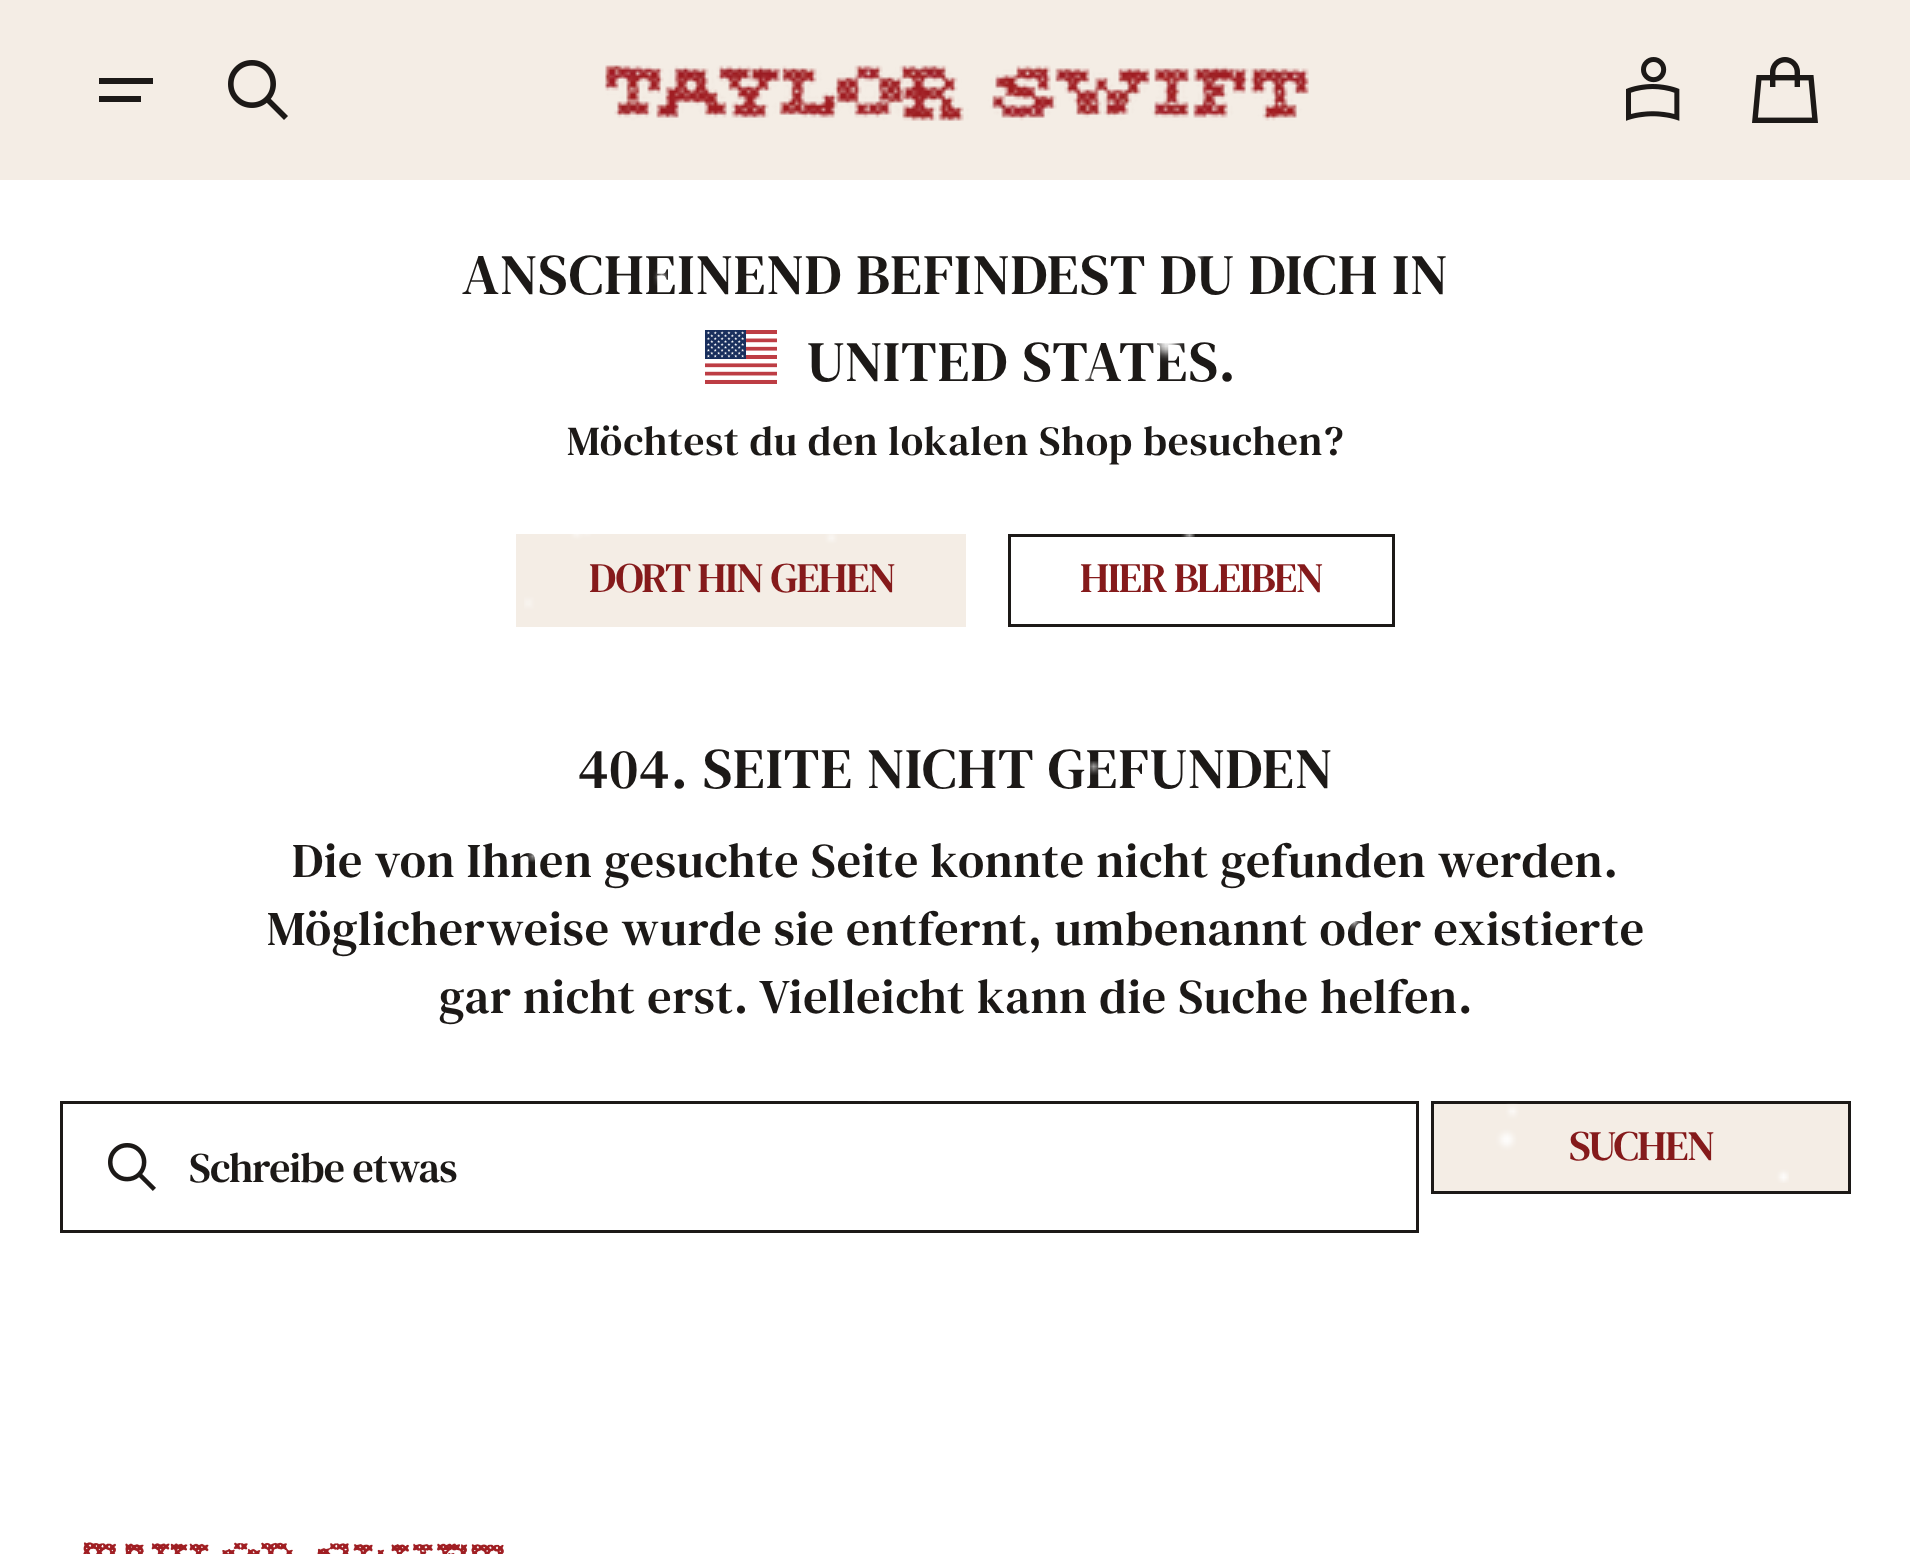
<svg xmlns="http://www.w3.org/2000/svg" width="1910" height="1554">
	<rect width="100%" height="100%" fill="#FFFFFF" />
	<rect x="0" y="0" width="1910" height="180" fill="#F4EDE5" />
	<rect x="99" y="78" width="54" height="6" fill="#1C1917" />
	<rect x="99" y="96" width="42" height="6" fill="#1C1917" />
	<image x="228" y="60" width="60" height="60" href="assets/img1.png" />
	<image x="604" y="65" width="705" height="56" href="assets/img2.png" />
	<image x="1626" y="57" width="54" height="64" href="assets/img3.png" />
	<image x="1752" y="57" width="66" height="66" href="assets/img4.png" />
	<text x="462" y="294" font-family="DM Serif Text" font-size="57.1" letter-spacing="1.15" fill="#1C1917">ANSCHEINEND BEFINDEST DU DICH IN</text>
	<image x="705" y="330" width="72" height="54" href="assets/img5.png" />
	<text x="807" y="381" font-family="DM Serif Text" font-size="57.1" letter-spacing="1.15" fill="#1C1917">UNITED STATES.</text>
	<text x="567" y="455" font-family="DM Serif Text" font-size="41.4" letter-spacing="0.83" fill="#1C1917">Möchtest du den lokalen Shop besuchen?</text>
	<rect x="516" y="534" width="450" height="93" fill="#F4EDE5" />
	<text x="589" y="592" font-family="DM Serif Text" font-size="42" letter-spacing="-1.25" fill="#851A1B">DORT HIN GEHEN</text>
	<rect x="1009.5" y="535.5" width="384" height="90" fill="none" stroke="#1C1917" stroke-width="3" />
	<text x="1080" y="592" font-family="DM Serif Text" font-size="42" letter-spacing="-1.25" fill="#851A1B">HIER BLEIBEN</text>
	<text x="578" y="788" font-family="DM Serif Text" font-size="57" letter-spacing="1.15" fill="#1C1917">404. SEITE NICHT GEFUNDEN</text>
	<g font-family="DM Serif Text" font-size="48.3" letter-spacing="0.83" fill="#1C1917">
		<text x="292" y="877">Die von Ihnen gesuchte Seite konnte nicht gefunden werden.</text>
		<text x="267" y="945">Möglicherweise wurde sie entfernt, umbenannt oder existierte</text>
		<text x="439" y="1013">gar nicht erst. Vielleicht kann die Suche helfen.</text>
	</g>
	<rect x="61.5" y="1102.5" width="1356" height="129" fill="none" stroke="#1C1917" stroke-width="3" />
	<rect x="1432.5" y="1102.5" width="417" height="90" fill="#F4EDE5" stroke="#1C1917" stroke-width="3" />
	<text x="1569" y="1160" font-family="DM Serif Text" font-size="42" letter-spacing="-1.25" fill="#851A1B">SUCHEN</text>
	<image x="524" y="256" width="1265" height="927" href="assets/img6.png" />
	<image x="108" y="1143" width="48" height="48" href="assets/img7.png" />
	<text x="189" y="1182" font-family="DM Serif Text" font-size="42" letter-spacing="-0.8" fill="#1C1917">Schreibe etwas</text>
	<image x="83" y="1542" width="421" height="12" href="assets/img8.png" />
</svg>
